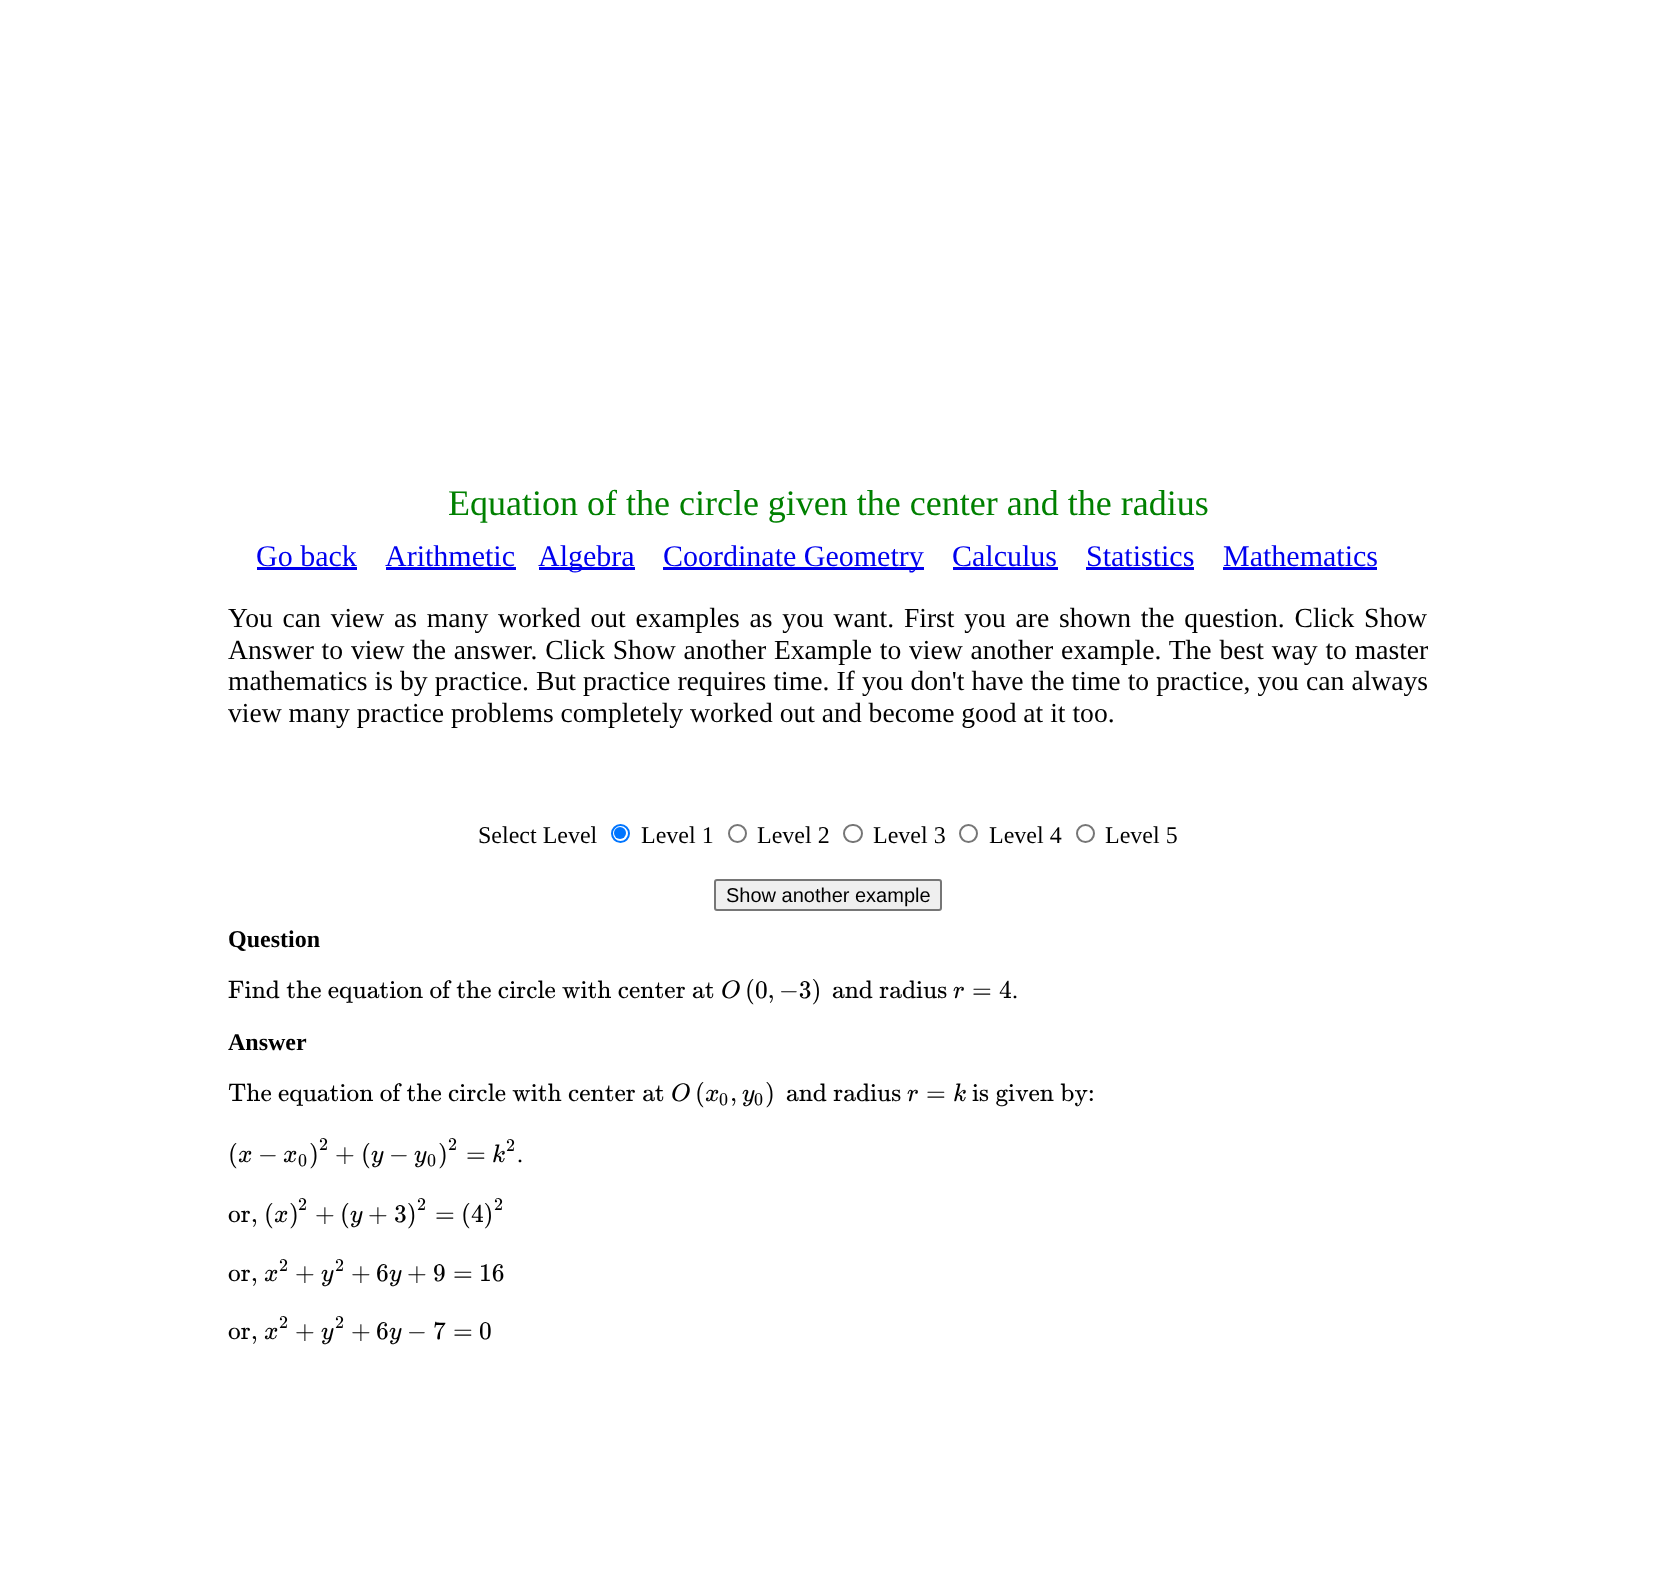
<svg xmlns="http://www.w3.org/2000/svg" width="1656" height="1581">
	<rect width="100%" height="100%" fill="#FFFFFF" />
	<text x="448" y="515" font-family="Liberation Serif" font-size="36" fill="#008000">Equation of the circle given the center and the radius</text>
	<text x="256" y="566" font-family="Liberation Serif" font-size="30" fill="#0000EE">Go back</text>
	<rect x="257" y="567" width="100" height="3" fill="#0000EE" />
	<text x="385" y="566" font-family="Liberation Serif" font-size="30" fill="#0000EE">Arithmetic</text>
	<rect x="386" y="567" width="130" height="3" fill="#0000EE" />
	<rect x="539" y="567" width="96" height="3" fill="#0000EE" />
	<text x="538" y="566" font-family="Liberation Serif" font-size="30" fill="#0000EE">Algebra</text>
	<rect x="663" y="567" width="261" height="3" fill="#0000EE" />
	<g font-family="Liberation Serif" font-size="30" fill="#0000EE">
		<text x="663" y="566">Coordinate Geometry</text>
		<text x="952" y="566">Calculus</text>
	</g>
	<rect x="953" y="567" width="105" height="3" fill="#0000EE" />
	<text x="1086" y="566" font-family="Liberation Serif" font-size="30" fill="#0000EE">Statistics</text>
	<rect x="1086" y="567" width="108" height="3" fill="#0000EE" />
	<text x="1223" y="566" font-family="Liberation Serif" font-size="30" fill="#0000EE">Mathematics</text>
	<rect x="1223" y="567" width="154" height="3" fill="#0000EE" />
	<g font-family="Liberation Serif" font-size="27.6" fill="#000000">
		<text x="228" y="627" word-spacing="2.9">You can view as many worked out examples as you want. First you are shown the question. Click Show</text>
		<text x="228" y="659" word-spacing="0.9">Answer to view the answer. Click Show another Example to view another example. The best way to master</text>
		<text x="228" y="690" word-spacing="0.2">mathematics is by practice. But practice requires time. If you don't have the time to practice, you can always</text>
		<text x="228" y="722">view many practice problems completely worked out and become good at it too.</text>
	</g>
	<text x="478" y="843" font-family="Liberation Serif" font-size="24" fill="#000000">Select Level</text>
	<circle cx="620.5" cy="833.5" r="8.5" fill="none" stroke="#0075FF" stroke-width="2" />
	<circle cx="620" cy="833" r="6" fill="#0075FF" />
	<text x="641" y="843" font-family="Liberation Serif" font-size="24" fill="#000000">Level 1</text>
	<circle cx="737.5" cy="833.5" r="8.5" fill="none" stroke="#767676" stroke-width="2" />
	<text x="757" y="843" font-family="Liberation Serif" font-size="24" fill="#000000">Level 2</text>
	<rect x="844" y="825" width="18" height="17" rx="8.5" fill="none" stroke="#767676" stroke-width="2" />
	<text x="873" y="843" font-family="Liberation Serif" font-size="24" fill="#000000">Level 3</text>
	<circle cx="968.5" cy="833.5" r="8.5" fill="none" stroke="#767676" stroke-width="2" />
	<text x="989" y="843" font-family="Liberation Serif" font-size="24" fill="#000000">Level 4</text>
	<circle cx="1085.5" cy="833.5" r="8.5" fill="none" stroke="#767676" stroke-width="2" />
	<text x="1105" y="843" font-family="Liberation Serif" font-size="24" fill="#000000">Level 5</text>
	<rect x="715" y="880" width="226" height="30" rx="2" fill="#EFEFEF" stroke="#767676" stroke-width="2" />
	<text x="726" y="902" font-family="Liberation Sans" font-size="20" fill="#000000">Show another example</text>
	<text x="228" y="947" font-family="Liberation Serif" font-size="24" font-weight="700" fill="#000000">Question</text>
	<text x="228" y="998" font-family="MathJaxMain" font-size="25.4" fill="#000000">Find the equation of the circle with center at</text>
	<text x="721" y="998" font-family="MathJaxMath" font-size="25.4" font-style="italic" fill="#000000">O</text>
	<g font-family="MathJaxMain" font-size="25.4" fill="#000000">
		<text x="745" y="998">(0,</text>
		<text x="779" y="998">−3)</text>
		<text x="832" y="998">and radius</text>
	</g>
	<text x="953" y="998" font-family="MathJaxMath" font-size="25.4" font-style="italic" fill="#000000">r</text>
	<g font-family="MathJaxMain" font-size="25.4" fill="#000000">
		<text x="972" y="998">=</text>
		<text x="999" y="998">4</text>
	</g>
	<text x="1012" y="998" font-family="Liberation Serif" font-size="24" fill="#000000">.</text>
	<text x="228" y="1050" font-family="Liberation Serif" font-size="24" font-weight="700" fill="#000000">Answer</text>
	<text x="228" y="1101" font-family="MathJaxMain" font-size="25.4" fill="#000000">The equation of the circle with center at</text>
	<text x="671" y="1101" font-family="MathJaxMath" font-size="25.4" font-style="italic" fill="#000000">O</text>
	<text x="695" y="1101" font-family="MathJaxMain" font-size="25.4" fill="#000000">(</text>
	<text x="705" y="1101" font-family="MathJaxMath" font-size="25.4" font-style="italic" fill="#000000">x</text>
	<text x="719" y="1105" font-family="MathJaxMain" font-size="18" fill="#000000">0</text>
	<text x="730" y="1101" font-family="MathJaxMain" font-size="25.4" fill="#000000">,</text>
	<text x="742" y="1101" font-family="MathJaxMath" font-size="25.4" font-style="italic" fill="#000000">y</text>
	<text x="754" y="1105" font-family="MathJaxMain" font-size="18" fill="#000000">0</text>
	<g font-family="MathJaxMain" font-size="25.4" fill="#000000">
		<text x="765" y="1101">)</text>
		<text x="786" y="1101">and radius</text>
	</g>
	<text x="907" y="1101" font-family="MathJaxMath" font-size="25.4" font-style="italic" fill="#000000">r</text>
	<text x="926" y="1101" font-family="MathJaxMain" font-size="25.4" fill="#000000">=</text>
	<text x="953" y="1101" font-family="MathJaxMath" font-size="25.4" font-style="italic" fill="#000000">k</text>
	<g font-family="MathJaxMain" font-size="25.4" fill="#000000">
		<text x="972" y="1101">is given by:</text>
		<text x="228" y="1162">(</text>
	</g>
	<text x="238" y="1162" font-family="MathJaxMath" font-size="25.4" font-style="italic" fill="#000000">x</text>
	<text x="258" y="1162" font-family="MathJaxMain" font-size="25.4" fill="#000000">−</text>
	<text x="283" y="1162" font-family="MathJaxMath" font-size="25.4" font-style="italic" fill="#000000">x</text>
	<text x="298" y="1166" font-family="MathJaxMain" font-size="18" fill="#000000">0</text>
	<text x="309" y="1162" font-family="MathJaxMain" font-size="25.4" fill="#000000">)</text>
	<text x="319" y="1150" font-family="MathJaxMain" font-size="18" fill="#000000">2</text>
	<g font-family="MathJaxMain" font-size="25.4" fill="#000000">
		<text x="335" y="1162">+</text>
		<text x="361" y="1162">(</text>
	</g>
	<text x="371" y="1162" font-family="MathJaxMath" font-size="25.4" font-style="italic" fill="#000000">y</text>
	<text x="389" y="1162" font-family="MathJaxMain" font-size="25.4" fill="#000000">−</text>
	<text x="414" y="1162" font-family="MathJaxMath" font-size="25.4" font-style="italic" fill="#000000">y</text>
	<text x="427" y="1166" font-family="MathJaxMain" font-size="18" fill="#000000">0</text>
	<text x="438" y="1162" font-family="MathJaxMain" font-size="25.4" fill="#000000">)</text>
	<text x="448" y="1150" font-family="MathJaxMain" font-size="18" fill="#000000">2</text>
	<text x="466" y="1162" font-family="MathJaxMain" font-size="25.4" fill="#000000">=</text>
	<text x="492" y="1162" font-family="MathJaxMath" font-size="25.4" font-style="italic" fill="#000000">k</text>
	<text x="506" y="1151" font-family="MathJaxMain" font-size="18" fill="#000000">2</text>
	<text x="517" y="1162" font-family="Liberation Serif" font-size="24" fill="#000000">.</text>
	<text x="228" y="1222" font-family="MathJaxMain" font-size="25.4" fill="#000000">or, (</text>
	<text x="274" y="1222" font-family="MathJaxMath" font-size="25.4" font-style="italic" fill="#000000">x</text>
	<text x="289" y="1222" font-family="MathJaxMain" font-size="25.4" fill="#000000">)</text>
	<text x="298" y="1210" font-family="MathJaxMain" font-size="18" fill="#000000">2</text>
	<g font-family="MathJaxMain" font-size="25.4" fill="#000000">
		<text x="315" y="1222">+</text>
		<text x="340" y="1222">(</text>
	</g>
	<text x="350" y="1222" font-family="MathJaxMath" font-size="25.4" font-style="italic" fill="#000000">y</text>
	<g font-family="MathJaxMain" font-size="25.4" fill="#000000">
		<text x="368" y="1222">+</text>
		<text x="394" y="1222">3)</text>
	</g>
	<text x="417" y="1210" font-family="MathJaxMain" font-size="18" fill="#000000">2</text>
	<g font-family="MathJaxMain" font-size="25.4" fill="#000000">
		<text x="435" y="1222">=</text>
		<text x="461" y="1222">(4)</text>
	</g>
	<text x="494" y="1210" font-family="MathJaxMain" font-size="18" fill="#000000">2</text>
	<text x="228" y="1281" font-family="MathJaxMain" font-size="25.4" fill="#000000">or,</text>
	<text x="279" y="1271" font-family="MathJaxMain" font-size="18" fill="#000000">2</text>
	<text x="264" y="1281" font-family="MathJaxMath" font-size="25.4" font-style="italic" fill="#000000">x</text>
	<text x="295" y="1281" font-family="MathJaxMain" font-size="25.4" fill="#000000">+</text>
	<text x="335" y="1271" font-family="MathJaxMain" font-size="18" fill="#000000">2</text>
	<text x="321" y="1281" font-family="MathJaxMath" font-size="25.4" font-style="italic" fill="#000000">y</text>
	<g font-family="MathJaxMain" font-size="25.4" fill="#000000">
		<text x="351" y="1281">+</text>
		<text x="376" y="1281">6</text>
	</g>
	<text x="389" y="1281" font-family="MathJaxMath" font-size="25.4" font-style="italic" fill="#000000">y</text>
	<g font-family="MathJaxMain" font-size="25.4" fill="#000000">
		<text x="407" y="1281">+</text>
		<text x="433" y="1281">9</text>
		<text x="453" y="1281">=</text>
		<text x="479" y="1281">16</text>
		<text x="228" y="1339">or,</text>
	</g>
	<text x="279" y="1328" font-family="MathJaxMain" font-size="18" fill="#000000">2</text>
	<text x="264" y="1339" font-family="MathJaxMath" font-size="25.4" font-style="italic" fill="#000000">x</text>
	<text x="295" y="1339" font-family="MathJaxMain" font-size="25.4" fill="#000000">+</text>
	<text x="335" y="1328" font-family="MathJaxMain" font-size="18" fill="#000000">2</text>
	<text x="321" y="1339" font-family="MathJaxMath" font-size="25.4" font-style="italic" fill="#000000">y</text>
	<g font-family="MathJaxMain" font-size="25.4" fill="#000000">
		<text x="351" y="1339">+</text>
		<text x="376" y="1339">6</text>
	</g>
	<text x="389" y="1339" font-family="MathJaxMath" font-size="25.4" font-style="italic" fill="#000000">y</text>
	<g font-family="MathJaxMain" font-size="25.4" fill="#000000">
		<text x="407" y="1339">−</text>
		<text x="433" y="1339">7</text>
		<text x="453" y="1339">=</text>
		<text x="479" y="1339">0</text>
	</g>
</svg>
